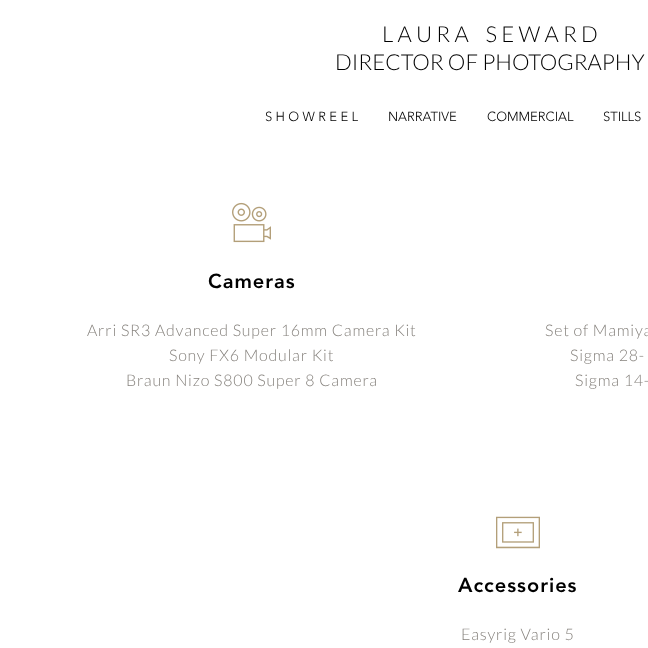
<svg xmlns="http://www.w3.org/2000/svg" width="648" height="648">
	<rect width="100%" height="100%" fill="#FFFFFF" />
	<g font-family="Lato" font-size="22" font-weight="300" fill="#000000">
		<text x="382" y="42" xml:space="preserve">L A U R A    S E W A R D</text>
		<text x="335" y="70">DIRECTOR OF PHOTOGRAPHY</text>
	</g>
	<g font-family="'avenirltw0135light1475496'" font-size="13" font-weight="300" fill="#000000">
		<text x="265" y="121">S H O W R E E L</text>
		<text x="388" y="121">NARRATIVE</text>
		<text x="487" y="121">COMMERCIAL</text>
		<text x="603" y="121">STILLS</text>
	</g>
	<image x="232" y="202" width="39" height="41" href="assets/img1.png" />
	<text x="208" y="288" font-family="'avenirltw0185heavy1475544'" font-size="20" font-weight="900" letter-spacing="1" fill="#000000">Cameras</text>
	<g font-family="Lato" font-size="16" font-weight="300" letter-spacing="0.8" fill="#87837E">
		<text x="87" y="336">Arri SR3 Advanced Super 16mm Camera Kit</text>
		<text x="169" y="361">Sony FX6 Modular Kit</text>
		<text x="126" y="386">Braun Nizo S800 Super 8 Camera</text>
		<text x="545" y="336">Set of Mamiya</text>
		<text x="570" y="361">Sigma 28-</text>
		<text x="575" y="386">Sigma 14-</text>
	</g>
	<image x="496" y="516" width="44" height="33" href="assets/img2.png" />
	<text x="458" y="592" font-family="'avenirltw0185heavy1475544'" font-size="20" font-weight="900" letter-spacing="1" fill="#000000">Accessories</text>
	<text x="461" y="640" font-family="Lato" font-size="16" font-weight="300" letter-spacing="0.8" fill="#87837E">Easyrig Vario 5</text>
</svg>
